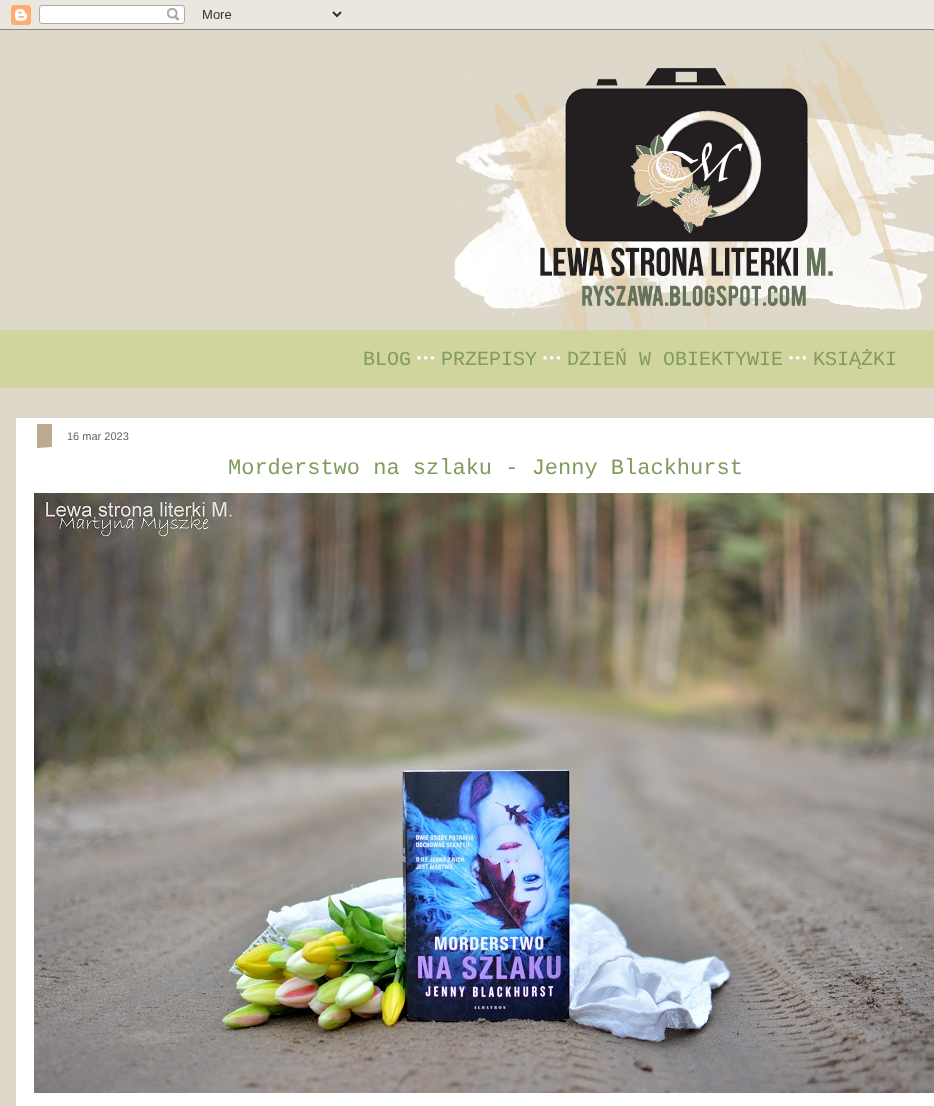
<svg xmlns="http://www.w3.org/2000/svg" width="934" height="1106">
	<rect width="100%" height="100%" fill="#DED8CA" />
	<image x="0" y="0" width="934" height="30" href="assets/img1.png" />
	<image x="453" y="41" width="481" height="289" href="assets/img2.png" />
	<rect x="0" y="330" width="934" height="58" fill="#D0D49F" />
	<text x="363" y="365" font-family="Liberation Mono" font-size="20" fill="#829C5D">BLOG</text>
	<image x="417" y="356" width="18" height="4" href="assets/img3.png" />
	<text x="441" y="365" font-family="Liberation Mono" font-size="20" fill="#829C5D">PRZEPISY</text>
	<image x="543" y="356" width="18" height="4" href="assets/img3.png" />
	<text x="567" y="365" font-family="Liberation Mono" font-size="20" fill="#829C5D">DZIEŃ W OBIEKTYWIE</text>
	<image x="789" y="356" width="18" height="4" href="assets/img3.png" />
	<text x="813" y="365" font-family="Liberation Mono" font-size="20" fill="#829C5D">KSIĄŻKI</text>
	<rect x="16" y="418" width="918" height="688" fill="#FFFFFF" />
	<path d="M37 448V424H52V447Z" fill="#BDAB91" />
	<text x="67" y="440" font-family="Liberation Sans" font-size="11" fill="#666666">16 mar 2023</text>
	<text x="228" y="474" font-family="Liberation Mono" font-size="22" fill="#829C5D">Morderstwo na szlaku - Jenny Blackhurst</text>
	<image x="34" y="493" width="900" height="600" href="assets/img4.png" />
</svg>
